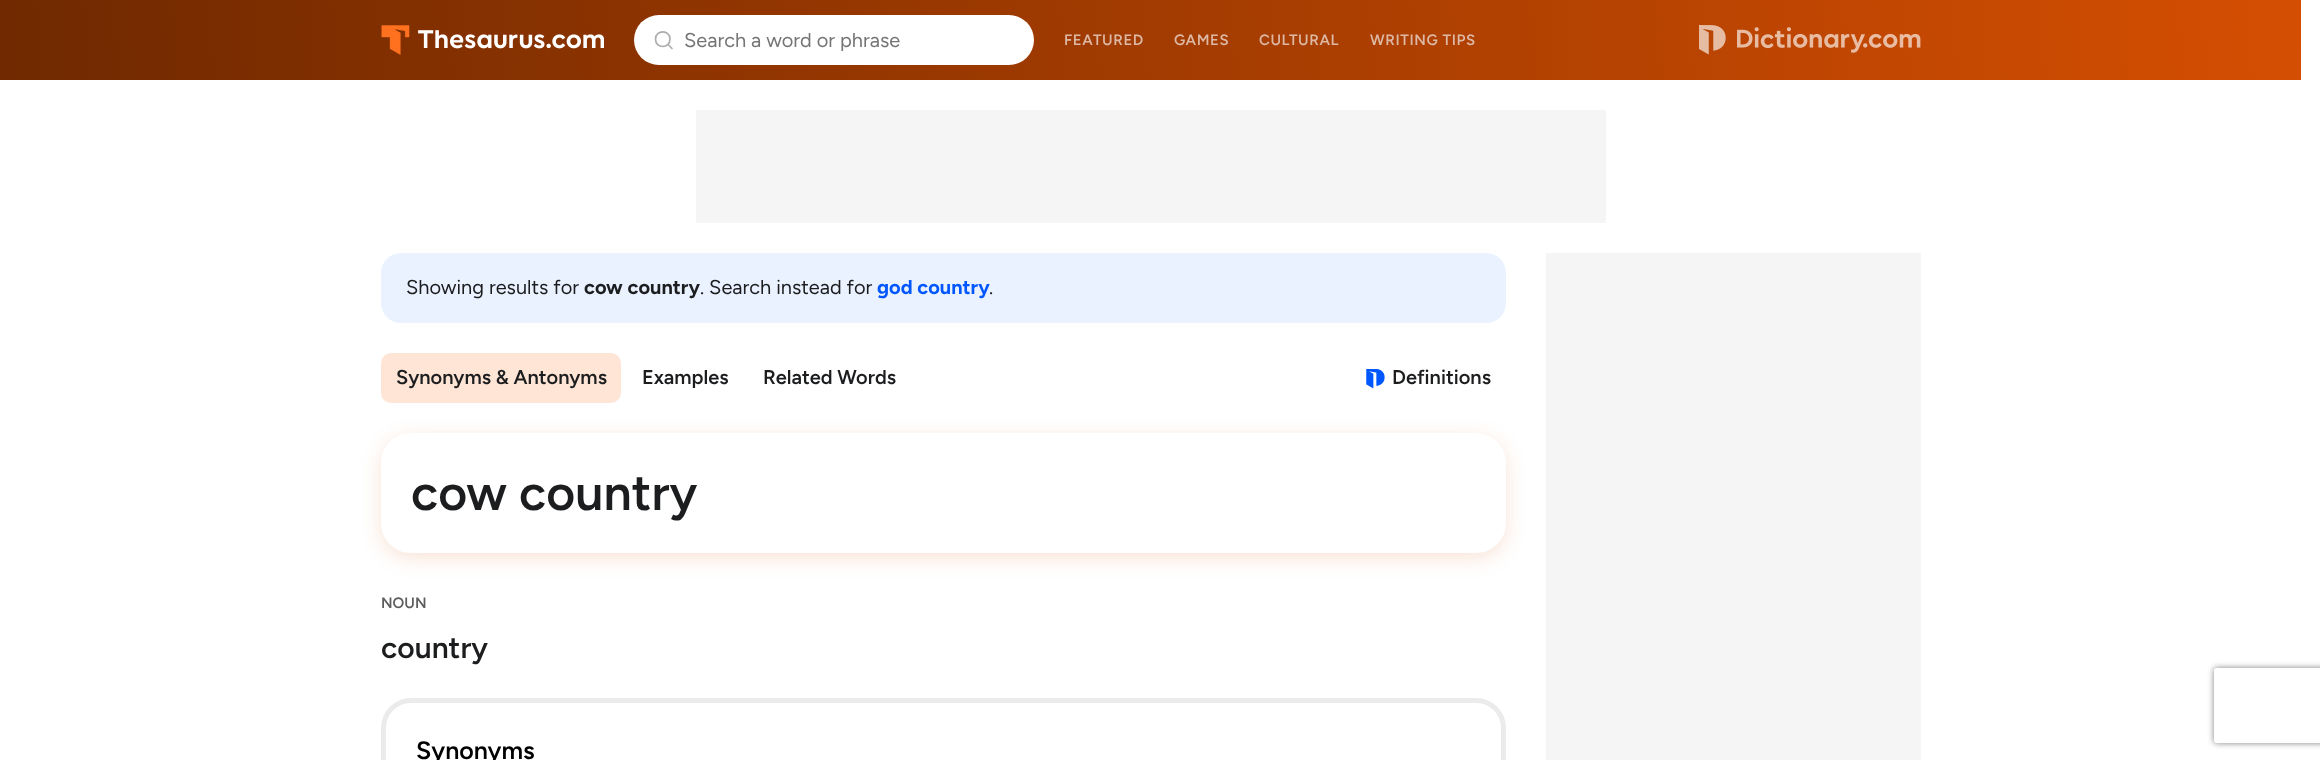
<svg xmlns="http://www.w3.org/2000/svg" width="2320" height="760">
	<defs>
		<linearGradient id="g1" gradientUnits="userSpaceOnUse" x1="3.3" y1="124" x2="2298" y2="-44"><stop offset="0" stop-color="#702900" /><stop offset="1" stop-color="#D44E02" /></linearGradient>
		<clipPath id="clip1"><path d="M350 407H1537V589H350ZM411 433H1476C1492.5 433 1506 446.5 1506 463V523C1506 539.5 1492.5 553 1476 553H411C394.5 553 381 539.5 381 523V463C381 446.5 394.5 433 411 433Z" clip-rule="evenodd" /></clipPath>
		<clipPath id="clip2"><path d="M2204 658H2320V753H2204ZM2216.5 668H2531.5C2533 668 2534 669 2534 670.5V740.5C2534 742 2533 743 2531.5 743H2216.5C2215 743 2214 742 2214 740.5V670.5C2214 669 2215 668 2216.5 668Z" clip-rule="evenodd" /></clipPath>
	</defs>
	<rect width="100%" height="100%" fill="#FFFFFF" />
	<rect x="0" y="0" width="2301" height="80" fill="url(#g1)" />
	<image x="381" y="25" width="223" height="30" href="assets/img1.png" />
	<rect x="634" y="15" width="400" height="50" rx="25" fill="#FFFFFF" />
	<path d="M672 48.5L668 44.5M670 39C670 49 655.5 49 655.5 39C655.5 29.5 670 29.5 670 39Z" fill="none" stroke="#ADADAD" stroke-width="1.7" stroke-linecap="round" stroke-linejoin="round" />
	<text x="684" y="47" font-family="Figtree" font-size="20" fill="#757575">Search a word or phrase</text>
	<g font-family="Figtree" font-size="15" font-weight="600" letter-spacing="0.6" fill="#DDB8A4">
		<text x="1064" y="45">FEATURED</text>
		<text x="1174" y="45">GAMES</text>
		<text x="1259" y="45">CULTURAL</text>
		<text x="1370" y="45">WRITING TIPS</text>
	</g>
	<image x="1699" y="25" width="222" height="30" href="assets/img2.png" />
	<rect x="696" y="110" width="910" height="113" fill="#F5F5F5" />
	<rect x="381" y="253" width="1125" height="70" rx="20" fill="#EBF2FF" />
	<text x="406" y="294" font-family="Figtree" font-size="20" fill="#1C1D1F">Showing results for</text>
	<text x="584" y="294" font-family="Figtree" font-size="20" font-weight="700" fill="#1C1D1F">cow country</text>
	<text x="700" y="294" font-family="Figtree" font-size="20" fill="#1C1D1F">. Search instead for</text>
	<text x="877" y="294" font-family="Figtree" font-size="20" font-weight="700" fill="#0057FF">god country</text>
	<text x="989" y="294" font-family="Figtree" font-size="20" fill="#1C1D1F">.</text>
	<rect x="381" y="353" width="240" height="50" rx="10" fill="#FFE5D6" />
	<g font-family="Figtree" font-size="20" font-weight="600" fill="#1C1D1F">
		<text x="396" y="384">Synonyms &amp; Antonyms</text>
		<text x="642" y="384">Examples</text>
		<text x="763" y="384">Related Words</text>
	</g>
	<image x="1366" y="369" width="19" height="20" href="assets/img3.png" />
	<text x="1392" y="384" font-family="Figtree" font-size="20" font-weight="600" fill="#1C1D1F">Definitions</text>
	<g clip-path="url(#clip1)">
		<rect x="381" y="438" width="1125" height="120" rx="30" fill="#D44E02" fill-opacity="0.16" filter="blur(10px)" />
	</g>
	<text x="411" y="510" font-family="Figtree" font-size="50" font-weight="600" fill="#1C1D1F">cow country</text>
	<text x="381" y="608" font-family="Figtree" font-size="15" font-weight="600" fill="#5C5C5C">NOUN</text>
	<text x="381" y="658" font-family="Figtree" font-size="30" font-weight="600" fill="#1C1D1F">country</text>
	<rect x="383.5" y="700.5" width="1120" height="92" rx="27.5" fill="none" stroke="#EBEBEB" stroke-width="5" />
	<text x="416" y="759" font-family="Figtree" font-size="25" font-weight="600" fill="#000000">Synonyms</text>
	<rect x="1546" y="253" width="375" height="507" fill="#F5F5F5" />
	<g clip-path="url(#clip2)">
		<rect x="2214" y="668" width="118" height="75" rx="2.5" fill="#808080" filter="blur(3px)" />
	</g>
</svg>
